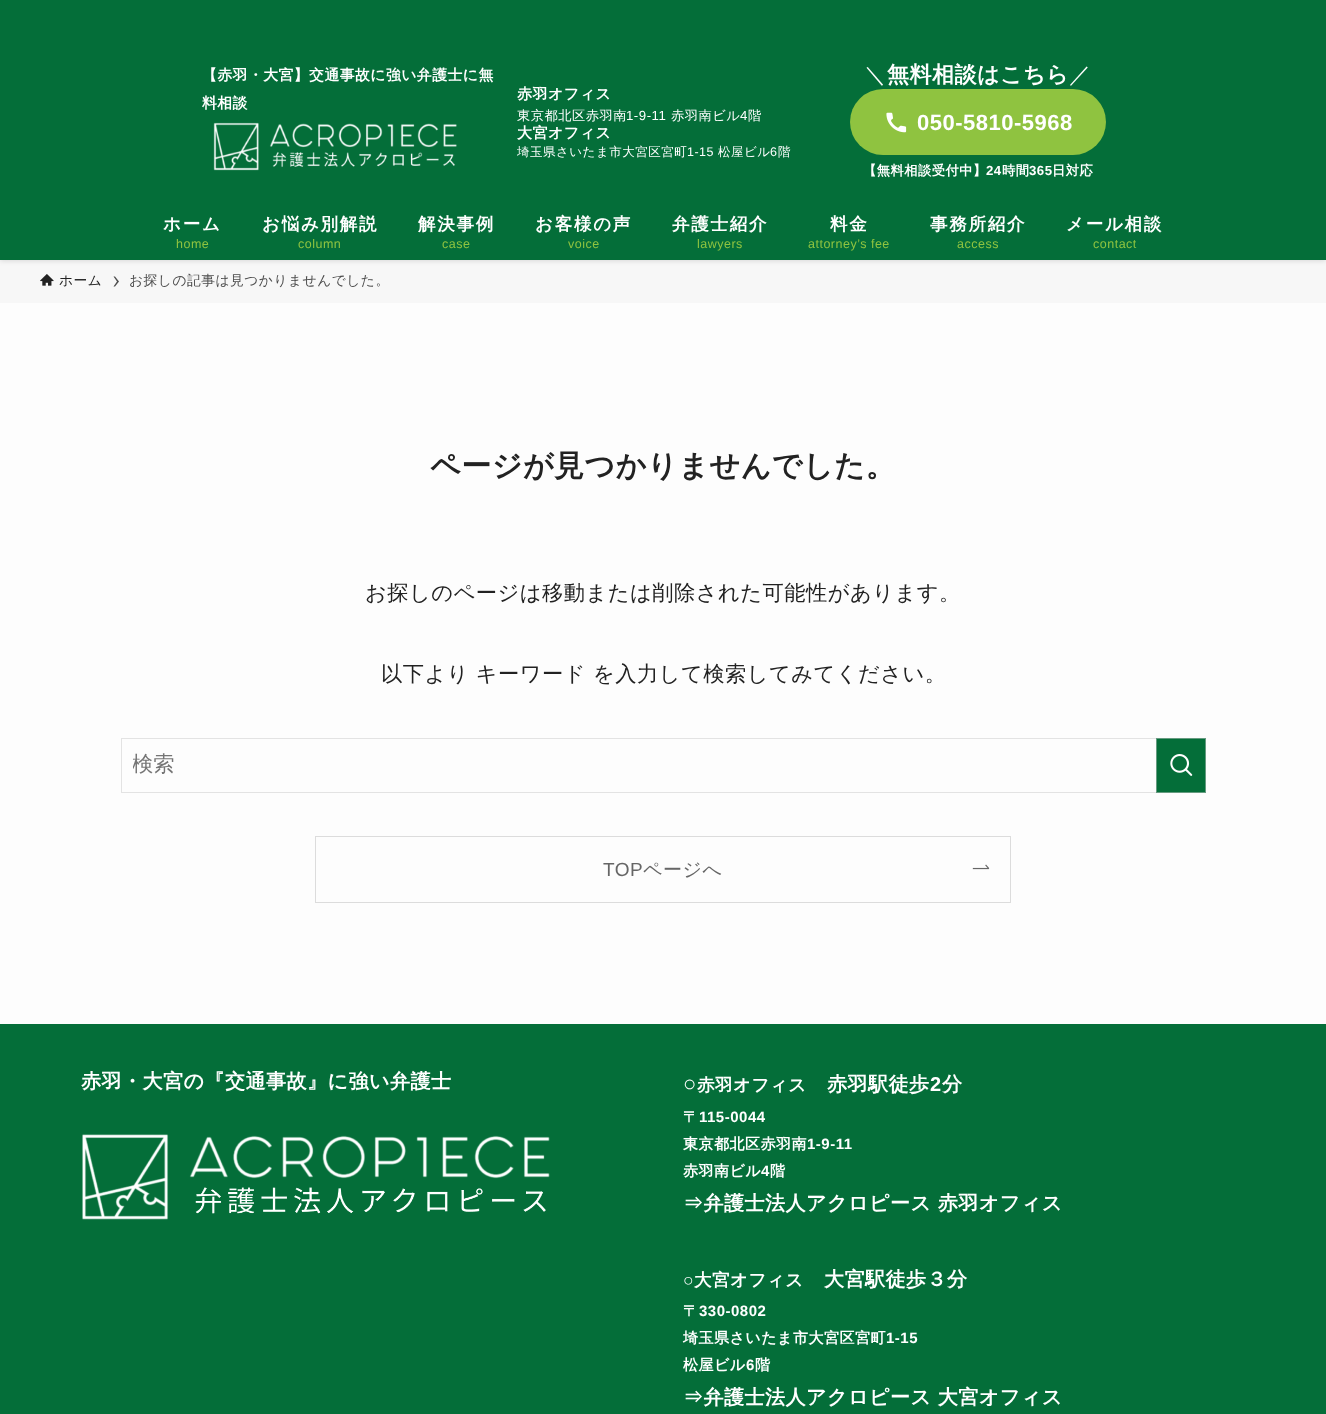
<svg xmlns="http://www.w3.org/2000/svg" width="1326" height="1414">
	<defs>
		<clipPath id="clip1"><rect x="133" y="750" width="1017" height="29" /></clipPath>
	</defs>
	<rect width="100%" height="100%" fill="#FDFDFD" />
	<rect x="0" y="260" width="1326" height="43" fill="#F7F7F7" />
	<rect x="0" y="1" width="1326" height="260" fill="#000000" fill-opacity="0.12" filter="blur(2.5px)" />
	<rect x="0" y="0" width="1326" height="260" fill="#046E39" />
	<g font-family="WenQuanYi Zen Hei" font-size="14.8" font-weight="700" letter-spacing="0.5" fill="#FFFFFF">
		<text x="202" y="80">【赤羽・大宮】交通事故に強い弁護士に無</text>
		<text x="202" y="108">料相談</text>
	</g>
	<image x="213" y="122" width="244" height="49" href="assets/img1.png" />
	<text x="517" y="99" font-family="WenQuanYi Zen Hei" font-size="15" font-weight="700" letter-spacing="0.5" fill="#FFFFFF">赤羽オフィス</text>
	<text x="517" y="120" font-family="WenQuanYi Zen Hei" font-size="13.25" font-weight="500" letter-spacing="0.5" fill="#FFFFFF">東京都北区赤羽南</text>
	<text x="626" y="120" font-family="Liberation Sans" font-size="13.25" letter-spacing="0.5" fill="#FFFFFF">1-9-11</text>
	<text x="671" y="120" font-family="WenQuanYi Zen Hei" font-size="13.25" font-weight="500" letter-spacing="0.5" fill="#FFFFFF">赤羽南ビル</text>
	<text x="740" y="120" font-family="Liberation Sans" font-size="13.25" letter-spacing="0.5" fill="#FFFFFF">4</text>
	<text x="748" y="120" font-family="WenQuanYi Zen Hei" font-size="13.25" font-weight="500" letter-spacing="0.5" fill="#FFFFFF">階</text>
	<text x="517" y="138" font-family="WenQuanYi Zen Hei" font-size="15" font-weight="700" letter-spacing="0.5" fill="#FFFFFF">大宮オフィス</text>
	<text x="517" y="156" font-family="WenQuanYi Zen Hei" font-size="12.5" font-weight="500" letter-spacing="0.5" fill="#FFFFFF">埼玉県さいたま市大宮区宮町</text>
	<text x="687" y="156" font-family="Liberation Sans" font-size="12.5" letter-spacing="0.5" fill="#FFFFFF">1-15</text>
	<text x="718" y="156" font-family="WenQuanYi Zen Hei" font-size="12.5" font-weight="500" letter-spacing="0.5" fill="#FFFFFF">松屋ビル</text>
	<text x="770" y="156" font-family="Liberation Sans" font-size="12.5" letter-spacing="0.5" fill="#FFFFFF">6</text>
	<text x="778" y="156" font-family="WenQuanYi Zen Hei" font-size="12.5" font-weight="500" letter-spacing="0.5" fill="#FFFFFF">階</text>
	<text x="864" y="82" font-family="WenQuanYi Zen Hei" font-size="22" font-weight="500" letter-spacing="0.5" fill="#FFFFFF">＼</text>
	<text x="887" y="82" font-family="WenQuanYi Zen Hei" font-size="22" font-weight="700" letter-spacing="0.5" fill="#FFFFFF">無料相談はこちら</text>
	<text x="1069" y="82" font-family="WenQuanYi Zen Hei" font-size="22" font-weight="500" letter-spacing="0.5" fill="#FFFFFF">／</text>
	<rect x="850" y="89" width="256" height="66" rx="33" fill="#8FC340" />
	<image x="886" y="112" width="21" height="21" href="assets/img2.png" />
	<text x="917" y="130" font-family="Liberation Sans" font-size="22" font-weight="700" letter-spacing="0.5" fill="#FFFFFF">050-5810-5968</text>
	<text x="863" y="175" font-family="WenQuanYi Zen Hei" font-size="13.25" font-weight="700" letter-spacing="0.5" fill="#FFFFFF">【無料相談受付中】</text>
	<text x="986" y="175" font-family="Liberation Sans" font-size="13.25" font-weight="700" letter-spacing="0.5" fill="#FFFFFF">24</text>
	<text x="1002" y="175" font-family="WenQuanYi Zen Hei" font-size="13.25" font-weight="700" letter-spacing="0.5" fill="#FFFFFF">時間</text>
	<text x="1029" y="175" font-family="Liberation Sans" font-size="13.25" font-weight="700" letter-spacing="0.5" fill="#FFFFFF">365</text>
	<text x="1052" y="175" font-family="WenQuanYi Zen Hei" font-size="13.25" font-weight="700" letter-spacing="0.5" fill="#FFFFFF">日対応</text>
	<text x="163" y="230" font-family="WenQuanYi Zen Hei" font-size="17.5" font-weight="700" letter-spacing="1.75" fill="#FFFFFF">ホーム</text>
	<text x="176" y="248" font-family="Liberation Sans" font-size="12.5" letter-spacing="0.5" fill="#8FC340">home</text>
	<text x="262" y="230" font-family="WenQuanYi Zen Hei" font-size="17.5" font-weight="700" letter-spacing="1.75" fill="#FFFFFF">お悩み別解説</text>
	<text x="298" y="248" font-family="Liberation Sans" font-size="12.5" letter-spacing="0.5" fill="#8FC340">column</text>
	<text x="418" y="230" font-family="WenQuanYi Zen Hei" font-size="17.5" font-weight="700" letter-spacing="1.75" fill="#FFFFFF">解決事例</text>
	<text x="442" y="248" font-family="Liberation Sans" font-size="12.5" letter-spacing="0.5" fill="#8FC340">case</text>
	<text x="535" y="230" font-family="WenQuanYi Zen Hei" font-size="17.5" font-weight="700" letter-spacing="1.75" fill="#FFFFFF">お客様の声</text>
	<text x="568" y="248" font-family="Liberation Sans" font-size="12.5" letter-spacing="0.5" fill="#8FC340">voice</text>
	<text x="672" y="230" font-family="WenQuanYi Zen Hei" font-size="17.5" font-weight="700" letter-spacing="1.75" fill="#FFFFFF">弁護士紹介</text>
	<text x="697" y="248" font-family="Liberation Sans" font-size="12.5" letter-spacing="0.5" fill="#8FC340">lawyers</text>
	<text x="830" y="230" font-family="WenQuanYi Zen Hei" font-size="17.5" font-weight="700" letter-spacing="1.75" fill="#FFFFFF">料金</text>
	<text x="808" y="248" font-family="Liberation Sans" font-size="12.5" letter-spacing="0.5" fill="#8FC340">attorney’s fee</text>
	<text x="930" y="230" font-family="WenQuanYi Zen Hei" font-size="17.5" font-weight="700" letter-spacing="1.75" fill="#FFFFFF">事務所紹介</text>
	<text x="957" y="248" font-family="Liberation Sans" font-size="12.5" letter-spacing="0.5" fill="#8FC340">access</text>
	<text x="1066" y="230" font-family="WenQuanYi Zen Hei" font-size="17.5" font-weight="700" letter-spacing="1.75" fill="#FFFFFF">メール相談</text>
	<text x="1093" y="248" font-family="Liberation Sans" font-size="12.5" letter-spacing="0.5" fill="#8FC340">contact</text>
	<image x="40" y="274" width="14" height="12" href="assets/img3.png" />
	<text x="59" y="285" font-family="WenQuanYi Zen Hei" font-size="13.75" font-weight="500" letter-spacing="0.5" fill="#222222">ホーム</text>
	<path d="M115 276.5H113.5L117 281.5L113.5 286.5H115L119 281.5Z" fill="#4D4D4D" />
	<text x="129" y="285" font-family="WenQuanYi Zen Hei" font-size="13.75" font-weight="500" letter-spacing="0.5" fill="#4D4D4D">お探しの記事は見つかりませんでした。</text>
	<text x="430" y="476" font-family="WenQuanYi Zen Hei" font-size="30" font-weight="700" letter-spacing="0.5" fill="#222222">ページが見つかりませんでした。</text>
	<g font-family="WenQuanYi Zen Hei" font-size="21.25" font-weight="500" letter-spacing="0.5" fill="#222222">
		<text x="365" y="600">お探しのページは移動または削除された可能性があります。</text>
		<text x="381" y="681">以下より キーワード を入力して検索してみてください。</text>
	</g>
	<rect x="121.5" y="738.5" width="1084" height="54" fill="none" stroke="#E3E3E3" />
	<g clip-path="url(#clip1)">
		<text x="132" y="771" font-family="WenQuanYi Zen Hei" font-size="21.25" font-weight="500" fill="#757575">検索</text>
	</g>
	<rect x="1156.5" y="738.5" width="49" height="54" fill="#046E39" stroke="#669B80" />
	<image x="1170" y="754" width="23" height="22" href="assets/img4.png" />
	<rect x="315.5" y="836.5" width="695" height="66" fill="none" stroke="#DCDCDC" />
	<text x="603" y="876" font-family="Liberation Sans" font-size="19" letter-spacing="0.5" fill="#666666">TOP</text>
	<text x="643" y="876" font-family="WenQuanYi Zen Hei" font-size="19" font-weight="500" letter-spacing="0.5" fill="#666666">ページへ</text>
	<image x="972" y="864" width="18" height="6" href="assets/img5.png" />
	<rect x="0" y="1024" width="1326" height="390" fill="#046E39" />
	<text x="81" y="1088" font-family="WenQuanYi Zen Hei" font-size="20" font-weight="700" letter-spacing="0.5" fill="#FFFFFF">赤羽・大宮の『交通事故』に強い弁護士</text>
	<image x="82" y="1134" width="468" height="86" href="assets/img6.png" />
	<text x="683" y="1091" font-family="Liberation Sans" font-size="22" font-weight="700" letter-spacing="0.5" fill="#FFFFFF">○</text>
	<text x="697" y="1091" font-family="WenQuanYi Zen Hei" font-size="17.5" font-weight="700" letter-spacing="0.5" fill="#FFFFFF">赤羽オフィス</text>
	<text x="827" y="1091" font-family="WenQuanYi Zen Hei" font-size="20" font-weight="700" letter-spacing="0.5" fill="#FFFFFF">赤羽駅徒歩</text>
	<text x="930" y="1091" font-family="Liberation Sans" font-size="20" font-weight="700" letter-spacing="0.5" fill="#FFFFFF">2</text>
	<text x="942" y="1091" font-family="WenQuanYi Zen Hei" font-size="20" font-weight="700" letter-spacing="0.5" fill="#FFFFFF">分</text>
	<text x="683" y="1122" font-family="WenQuanYi Zen Hei" font-size="15" font-weight="700" letter-spacing="0.5" fill="#FFFFFF">〒</text>
	<text x="699" y="1122" font-family="Liberation Sans" font-size="15" font-weight="700" letter-spacing="0.5" fill="#FFFFFF">115-0044</text>
	<text x="683" y="1149" font-family="WenQuanYi Zen Hei" font-size="15" font-weight="700" letter-spacing="0.5" fill="#FFFFFF">東京都北区赤羽南</text>
	<text x="807" y="1149" font-family="Liberation Sans" font-size="15" font-weight="700" letter-spacing="0.5" fill="#FFFFFF">1-9-11</text>
	<text x="683" y="1176" font-family="WenQuanYi Zen Hei" font-size="15" font-weight="700" letter-spacing="0.5" fill="#FFFFFF">赤羽南ビル</text>
	<text x="761" y="1176" font-family="Liberation Sans" font-size="15" font-weight="700" letter-spacing="0.5" fill="#FFFFFF">4</text>
	<text x="770" y="1176" font-family="WenQuanYi Zen Hei" font-size="15" font-weight="700" letter-spacing="0.5" fill="#FFFFFF">階</text>
	<text x="683" y="1210" font-family="WenQuanYi Zen Hei" font-size="20" font-weight="700" letter-spacing="0.5" fill="#FFFFFF">⇒弁護士法人アクロピース 赤羽オフィス</text>
	<text x="683" y="1286" font-family="Liberation Sans" font-size="17.5" font-weight="700" letter-spacing="0.5" fill="#FFFFFF">○</text>
	<text x="694" y="1286" font-family="WenQuanYi Zen Hei" font-size="17.5" font-weight="700" letter-spacing="0.5" fill="#FFFFFF">大宮オフィス</text>
	<text x="824" y="1286" font-family="WenQuanYi Zen Hei" font-size="20" font-weight="700" letter-spacing="0.5" fill="#FFFFFF">大宮駅徒歩３分</text>
	<text x="683" y="1316" font-family="WenQuanYi Zen Hei" font-size="15" font-weight="700" letter-spacing="0.5" fill="#FFFFFF">〒</text>
	<text x="699" y="1316" font-family="Liberation Sans" font-size="15" font-weight="700" letter-spacing="0.5" fill="#FFFFFF">330-0802</text>
	<text x="683" y="1343" font-family="WenQuanYi Zen Hei" font-size="15" font-weight="700" letter-spacing="0.5" fill="#FFFFFF">埼玉県さいたま市大宮区宮町</text>
	<text x="886" y="1343" font-family="Liberation Sans" font-size="15" font-weight="700" letter-spacing="0.5" fill="#FFFFFF">1-15</text>
	<text x="683" y="1370" font-family="WenQuanYi Zen Hei" font-size="15" font-weight="700" letter-spacing="0.5" fill="#FFFFFF">松屋ビル</text>
	<text x="746" y="1370" font-family="Liberation Sans" font-size="15" font-weight="700" letter-spacing="0.5" fill="#FFFFFF">6</text>
	<text x="755" y="1370" font-family="WenQuanYi Zen Hei" font-size="15" font-weight="700" letter-spacing="0.5" fill="#FFFFFF">階</text>
	<text x="683" y="1404" font-family="WenQuanYi Zen Hei" font-size="20" font-weight="700" letter-spacing="0.5" fill="#FFFFFF">⇒弁護士法人アクロピース 大宮オフィス</text>
</svg>
